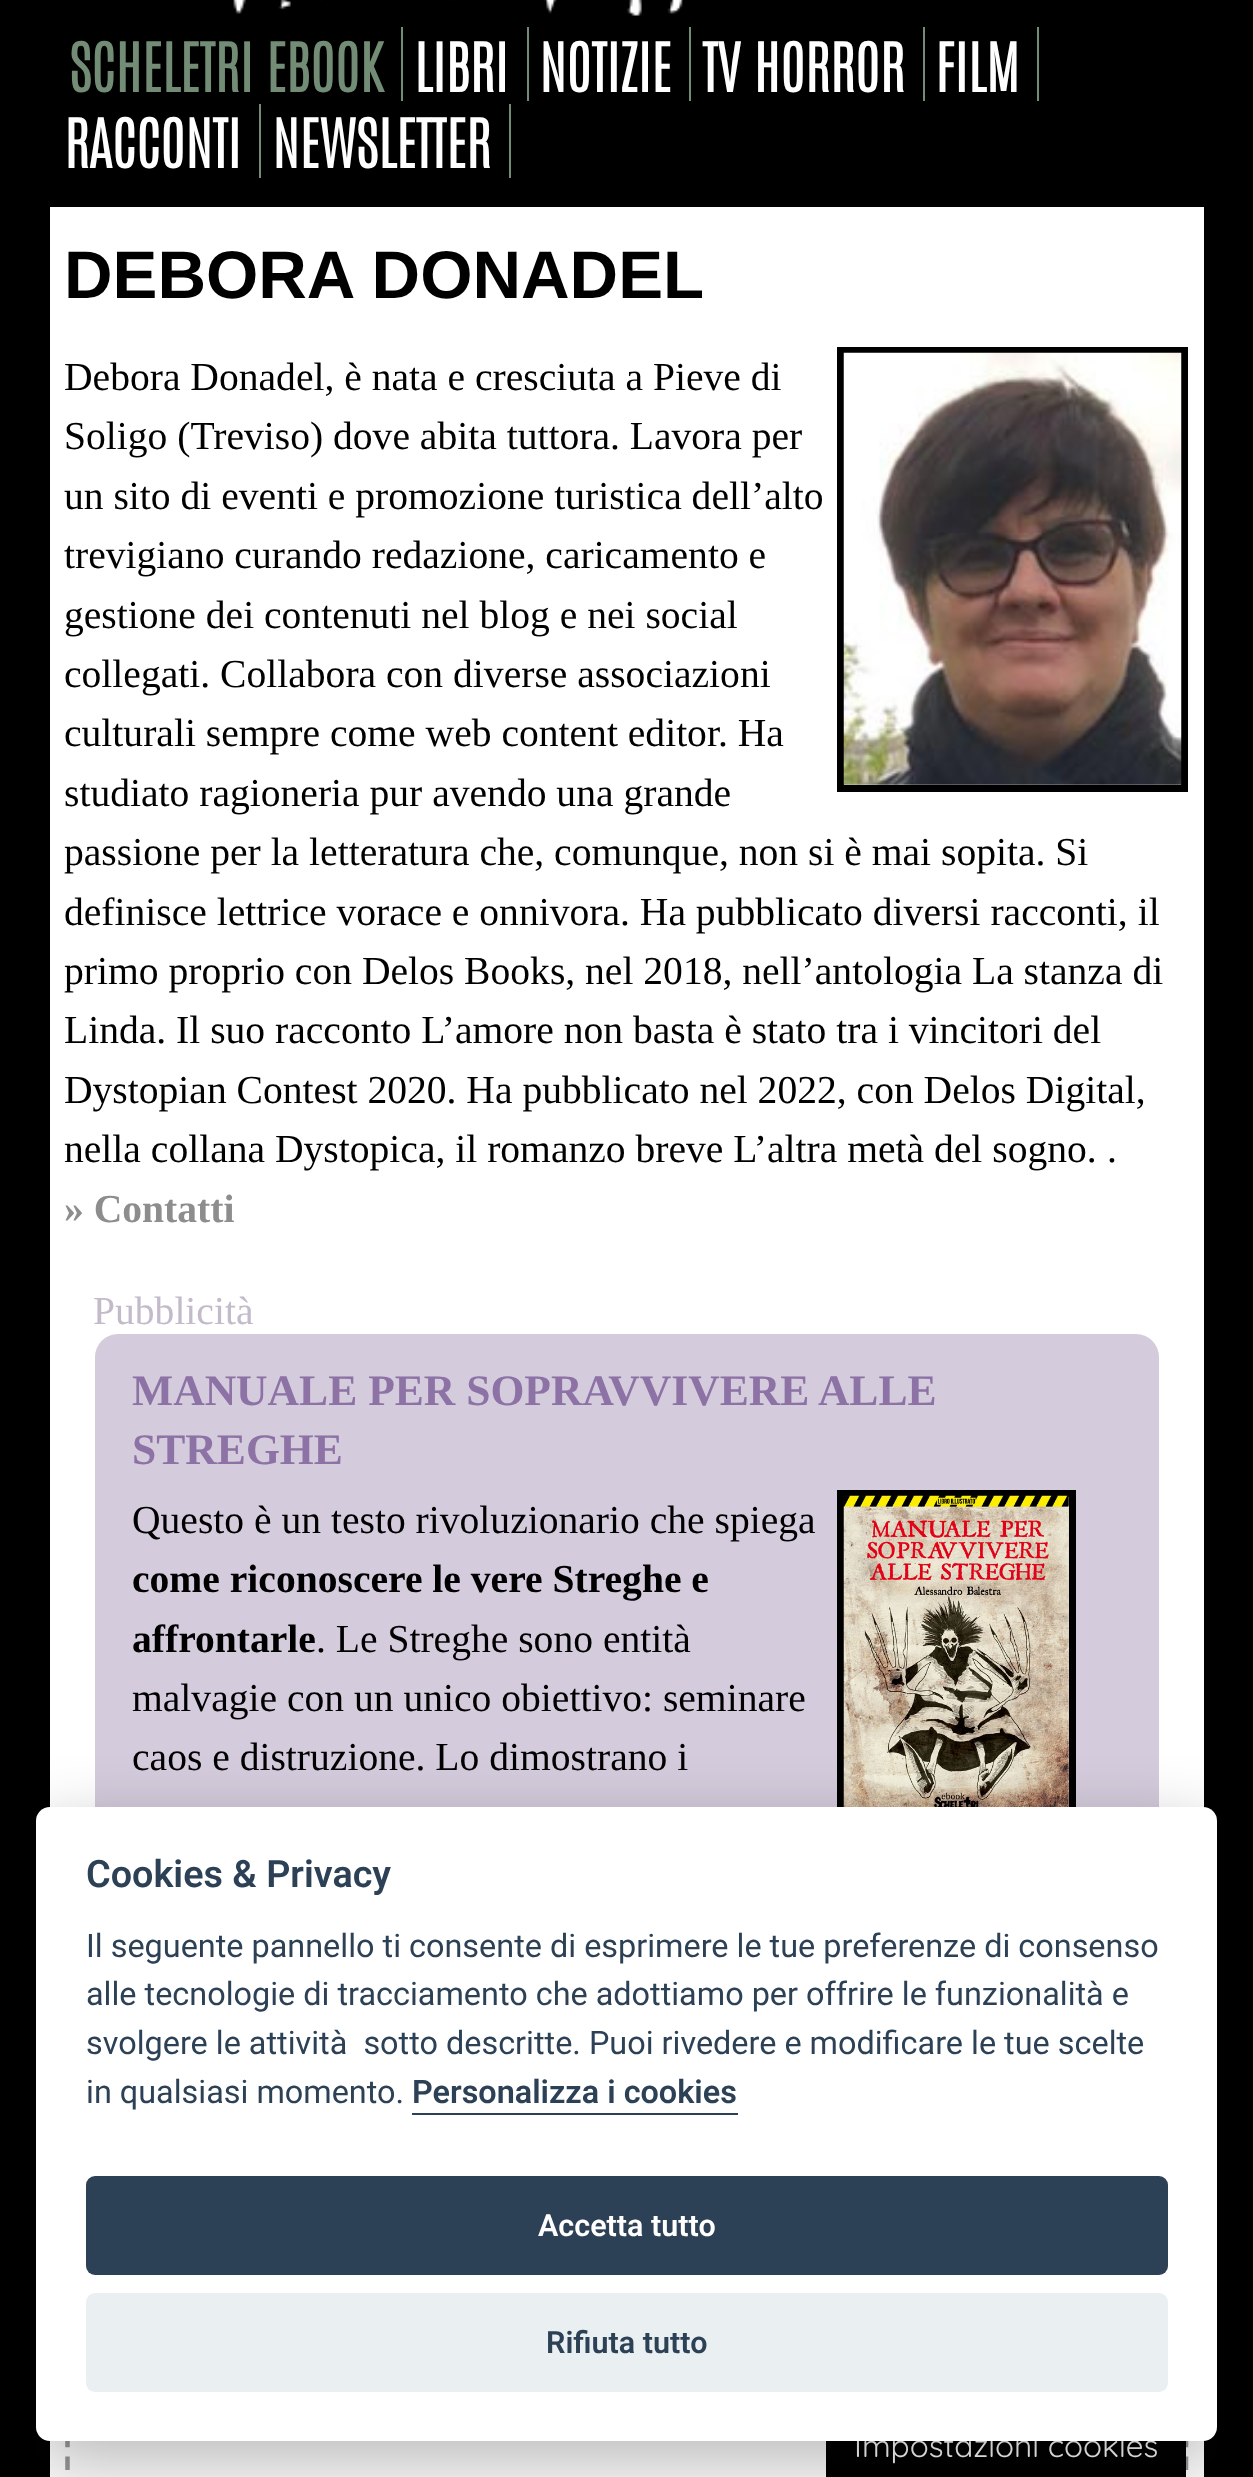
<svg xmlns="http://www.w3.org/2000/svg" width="1253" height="2477">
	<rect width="100%" height="100%" fill="#000000" />
	<rect x="50" y="207" width="1154" height="2270" fill="#FFFFFF" />
	<image x="233" y="0" width="450" height="16" href="assets/img1.png" />
	<text x="69" y="92" font-family="Antonio" font-size="57" font-weight="700" fill="#728C75">SCHELETRI EBOOK</text>
	<rect x="401" y="27" width="2" height="74" fill="#728C75" />
	<text x="414" y="92" font-family="Antonio" font-size="57" font-weight="700" fill="#FFFFFF">LIBRI</text>
	<rect x="527" y="27" width="2" height="74" fill="#728C75" />
	<text x="539" y="92" font-family="Antonio" font-size="57" font-weight="700" fill="#FFFFFF">NOTIZIE</text>
	<rect x="689" y="27" width="2" height="74" fill="#728C75" />
	<text x="702" y="92" font-family="Antonio" font-size="57" font-weight="700" fill="#FFFFFF">TV HORROR</text>
	<rect x="923" y="27" width="2" height="74" fill="#728C75" />
	<text x="935" y="92" font-family="Antonio" font-size="57" font-weight="700" fill="#FFFFFF">FILM</text>
	<rect x="1037" y="27" width="2" height="74" fill="#728C75" />
	<text x="64" y="168" font-family="Antonio" font-size="57" font-weight="700" fill="#FFFFFF">RACCONTI</text>
	<rect x="259" y="104" width="2" height="74" fill="#728C75" />
	<text x="272" y="168" font-family="Antonio" font-size="57" font-weight="700" fill="#FFFFFF">NEWSLETTER</text>
	<rect x="509" y="104" width="2" height="74" fill="#728C75" />
	<text x="64" y="298" font-family="Liberation Sans" font-size="67.25" font-weight="700" fill="#000000">DEBORA DONADEL</text>
	<text x="64" y="390" font-family="Liberation Serif" font-size="39.6" fill="#000000">Debora Donadel, è nata e cresciuta a Pieve di</text>
	<rect x="840.5" y="350.5" width="344" height="438" fill="none" stroke="#000000" stroke-width="7" />
	<image x="843" y="352" width="339" height="433" href="assets/img2.png" />
	<g font-family="Liberation Serif" font-size="39.6" fill="#000000">
		<text x="64" y="449">Soligo (Treviso) dove abita tuttora. Lavora per</text>
		<text x="64" y="509">un sito di eventi e promozione turistica dell’alto</text>
		<text x="64" y="568">trevigiano curando redazione, caricamento e</text>
		<text x="64" y="628">gestione dei contenuti nel blog e nei social</text>
		<text x="64" y="687">collegati. Collabora con diverse associazioni</text>
		<text x="64" y="746">culturali sempre come web content editor. Ha</text>
		<text x="64" y="806">studiato ragioneria pur avendo una grande</text>
		<text x="64" y="865">passione per la letteratura che, comunque, non si è mai sopita. Si</text>
		<text x="64" y="925">definisce lettrice vorace e onnivora. Ha pubblicato diversi racconti, il</text>
		<text x="64" y="984">primo proprio con Delos Books, nel 2018, nell’antologia La stanza di</text>
		<text x="64" y="1043">Linda. Il suo racconto L’amore non basta è stato tra i vincitori del</text>
		<text x="64" y="1103">Dystopian Contest 2020. Ha pubblicato nel 2022, con Delos Digital,</text>
		<text x="64" y="1162">nella collana Dystopica, il romanzo breve L’altra metà del sogno.</text>
		<text x="1107" y="1162">.</text>
	</g>
	<text x="64" y="1222" font-family="Liberation Serif" font-size="39.6" font-weight="700" fill="#8D8D8D">» Contatti</text>
	<text x="93" y="1324" font-family="Liberation Serif" font-size="39.6" fill="#C3BACA">Pubblicità</text>
	<rect x="95" y="1334" width="1064" height="896" rx="23" fill="#D4CBDC" />
	<g font-family="Liberation Serif" font-size="43.6" font-weight="700" fill="#8D72A6">
		<text x="132" y="1405">MANUALE PER SOPRAVVIVERE ALLE</text>
		<text x="132" y="1464">STREGHE</text>
	</g>
	<text x="132" y="1533" font-family="Liberation Serif" font-size="39.6" fill="#000000">Questo è un testo rivoluzionario che spiega</text>
	<rect x="840.5" y="1493.5" width="232" height="326" fill="none" stroke="#000000" stroke-width="7" />
	<image x="843" y="1495" width="226" height="312" href="assets/img3.png" />
	<g font-family="Liberation Serif" font-size="39.6" font-weight="700" fill="#000000">
		<text x="132" y="1592">come riconoscere le vere Streghe e</text>
		<text x="132" y="1652">affrontarle</text>
	</g>
	<g font-family="Liberation Serif" font-size="39.6" fill="#000000">
		<text x="316" y="1652">. Le Streghe sono entità</text>
		<text x="132" y="1711">malvagie con un unico obiettivo: seminare</text>
		<text x="132" y="1770">caos e distruzione. Lo dimostrano i</text>
	</g>
	<path d="M1186 2320V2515.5" fill="none" stroke="#999999" stroke-width="4.5" stroke-dasharray="13.5 9.27" />
	<path d="M67.5 2320V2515.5" fill="none" stroke="#999999" stroke-width="4.5" stroke-dasharray="13.5 9.27" />
	<rect x="826" y="2441" width="360" height="36" fill="#000000" />
	<text x="854" y="2457" font-family="Quicksand" font-size="31.5" fill="#FFFFFF">Impostazioni cookies</text>
	<rect x="36" y="1829" width="1181" height="635" rx="14" fill="#020203" fill-opacity="0.28" filter="blur(34px)" />
	<rect x="36" y="1807" width="1181" height="634" rx="14" fill="#FFFFFF" />
	<text x="86" y="1887" font-family="Roboto" font-size="37.75" font-weight="600" fill="#2D4156">Cookies &amp; Privacy</text>
	<g font-family="Roboto" font-size="32.4" fill="#2D4156">
		<text x="86" y="1957">Il seguente pannello ti consente di esprimere le tue preferenze di consenso</text>
		<text x="86" y="2005">alle tecnologie di tracciamento che adottiamo per offrire le funzionalità e</text>
		<text x="86" y="2054" xml:space="preserve">svolgere le attività  sotto descritte. Puoi rivedere e modificare le tue scelte</text>
		<text x="86" y="2103">in qualsiasi momento.</text>
	</g>
	<text x="412" y="2103" font-family="Roboto" font-size="32.4" font-weight="600" fill="#2D4156">Personalizza i cookies</text>
	<rect x="412" y="2113" width="326" height="2" fill="#2D4156" />
	<rect x="86" y="2176" width="1082" height="99" rx="9" fill="#2D4156" />
	<text x="538" y="2236" font-family="Roboto" font-size="30.5" font-weight="600" fill="#FFFFFF">Accetta tutto</text>
	<rect x="86" y="2293" width="1082" height="99" rx="9" fill="#EAEFF2" />
	<text x="546" y="2353" font-family="Roboto" font-size="30.5" font-weight="600" fill="#2D4156">Rifiuta tutto</text>
</svg>
